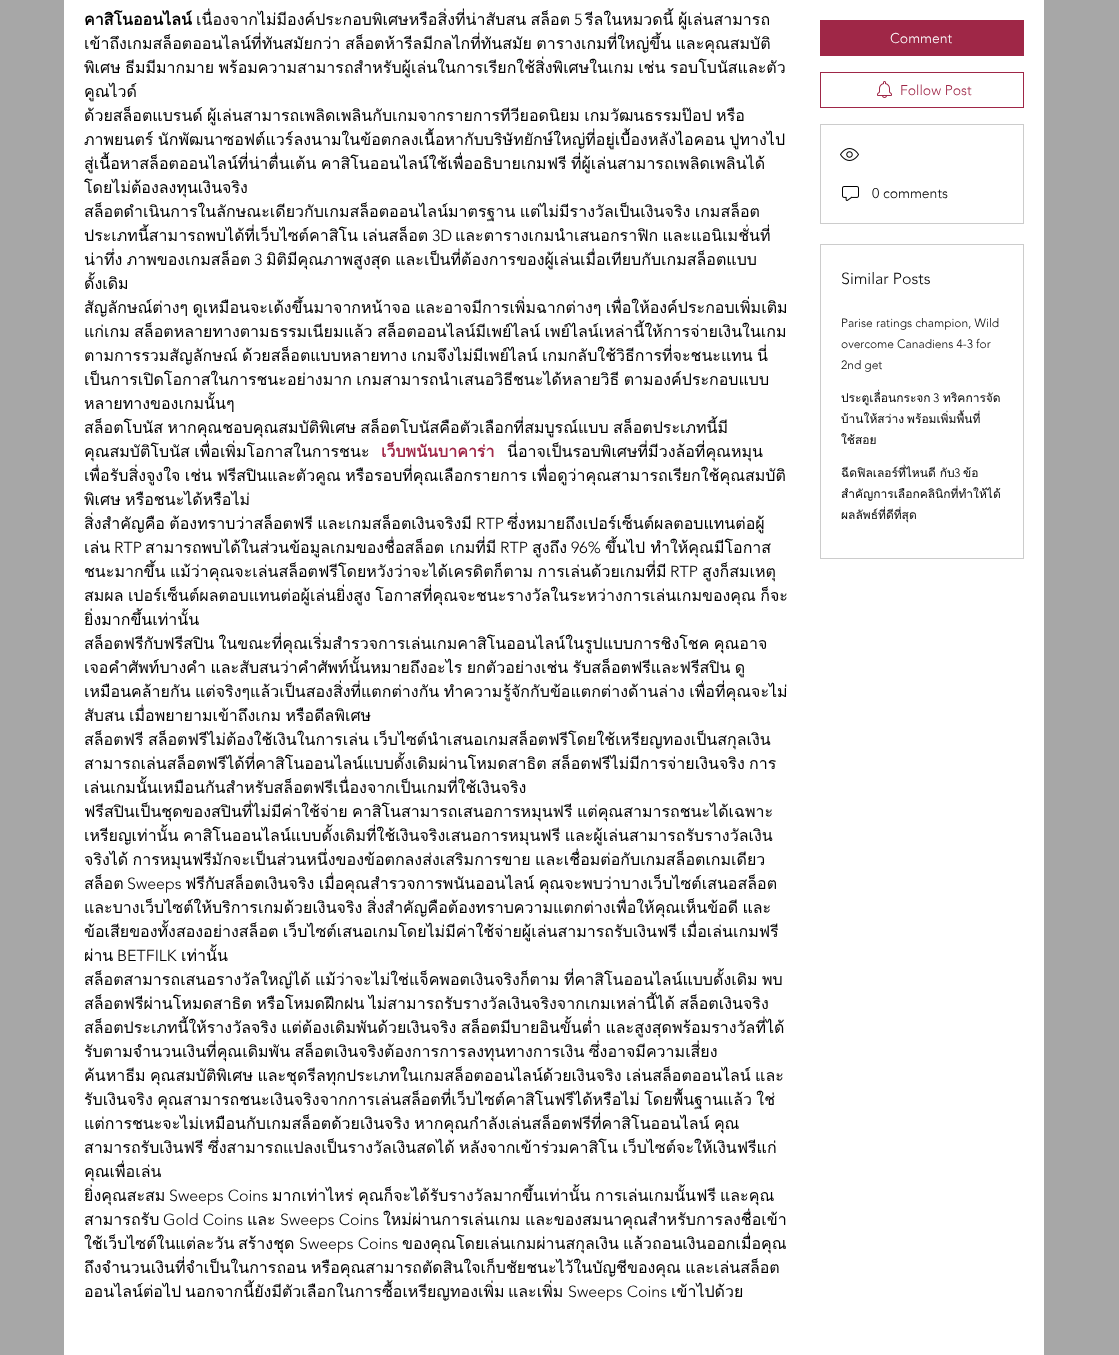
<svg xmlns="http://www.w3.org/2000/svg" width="1119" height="1355">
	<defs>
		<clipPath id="clip1"><rect x="84" y="0" width="704" height="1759" /></clipPath>
		<clipPath id="clip2"><rect x="841" y="388" width="162" height="63" /></clipPath>
		<clipPath id="clip3"><rect x="841" y="463" width="162" height="63" /></clipPath>
	</defs>
	<rect width="100%" height="100%" fill="#A7A7A7" />
	<rect x="64" y="0" width="980" height="1355" fill="#FFFFFF" />
	<text x="84" y="25" font-family="Loma" font-size="16" font-weight="700" fill="#000000">คาสิโนออนไลน์</text>
	<text x="196" y="25" word-spacing="-1" font-family="Loma" font-size="16" fill="#000000">เนื่องจากไม่มีองค์ประกอบพิเศษหรือสิ่งที่น่าสับสน สล็อต</text>
	<text x="574" y="25" font-family="'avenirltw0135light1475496'" font-size="16" font-weight="300" fill="#000000">5</text>
	<text x="585" y="25" word-spacing="-1" font-family="Loma" font-size="16" fill="#000000">รีลในหมวดนี้ ผู้เล่นสามารถ</text>
	<g clip-path="url(#clip1)">
		<g font-family="Loma" font-size="16" fill="#000000">
			<text x="84" y="49" word-spacing="-1">เข้าถึงเกมสล็อตออนไลน์ที่ทันสมัยกว่า สล็อตห้ารีลมีกลไกที่ทันสมัย ตารางเกมที่ใหญ่ขึ้น และคุณสมบัติ</text>
			<text x="84" y="73" word-spacing="-1">พิเศษ ธีมมีมากมาย พร้อมความสามารถสำหรับผู้เล่นในการเรียกใช้สิ่งพิเศษในเกม เช่น รอบโบนัสและตัว</text>
			<text x="84" y="97">คูณไวด์</text>
			<text x="84" y="121" word-spacing="-1">ด้วยสล็อตแบรนด์ ผู้เล่นสามารถเพลิดเพลินกับเกมจากรายการทีวียอดนิยม เกมวัฒนธรรมป๊อป หรือ</text>
		</g>
	</g>
	<text x="84" y="145" word-spacing="-1" font-family="Loma" font-size="16" fill="#000000">ภาพยนตร์ นักพัฒนาซอฟต์แวร์ลงนามในข้อตกลงเนื้อหากับบริษัทยักษ์ใหญ่ที่อยู่เบื้องหลังไอคอน ปูทางไป</text>
	<g clip-path="url(#clip1)">
		<text x="84" y="169" word-spacing="-1" font-family="Loma" font-size="16" fill="#000000">สู่เนื้อหาสล็อตออนไลน์ที่น่าตื่นเต้น คาสิโนออนไลน์ใช้เพื่ออธิบายเกมฟรี ที่ผู้เล่นสามารถเพลิดเพลินได้</text>
	</g>
	<g font-family="Loma" font-size="16" fill="#000000">
		<text x="84" y="193">โดยไม่ต้องลงทุนเงินจริง</text>
		<text x="84" y="217" word-spacing="-1">สล็อตดำเนินการในลักษณะเดียวกับเกมสล็อตออนไลน์มาตรฐาน แต่ไม่มีรางวัลเป็นเงินจริง เกมสล็อต</text>
		<text x="84" y="241" word-spacing="-1">ประเภทนี้สามารถพบได้ที่เว็บไซต์คาสิโน เล่นสล็อต</text>
	</g>
	<text x="432" y="241" font-family="'avenirltw0135light1475496'" font-size="16" font-weight="300" fill="#000000">3D</text>
	<text x="455" y="241" word-spacing="-1" font-family="Loma" font-size="16" fill="#000000">และตารางเกมนำเสนอกราฟิก และแอนิเมชั่นที่</text>
	<g clip-path="url(#clip1)">
		<text x="84" y="265" word-spacing="-1" font-family="Loma" font-size="16" fill="#000000">น่าทึ่ง ภาพของเกมสล็อต</text>
	</g>
	<text x="254" y="265" font-family="'avenirltw0135light1475496'" font-size="16" font-weight="300" fill="#000000">3</text>
	<text x="266" y="265" word-spacing="-1" font-family="Loma" font-size="16" fill="#000000">มิติมีคุณภาพสูงสุด และเป็นที่ต้องการของผู้เล่นเมื่อเทียบกับเกมสล็อตแบบ</text>
	<g clip-path="url(#clip1)">
		<g font-family="Loma" font-size="16" fill="#000000">
			<text x="84" y="289">ดั้งเดิม</text>
			<text x="84" y="313" word-spacing="-1">สัญลักษณ์ต่างๆ ดูเหมือนจะเด้งขึ้นมาจากหน้าจอ และอาจมีการเพิ่มฉากต่างๆ เพื่อให้องค์ประกอบเพิ่มเติม</text>
		</g>
	</g>
	<g font-family="Loma" font-size="16" fill="#000000">
		<text x="84" y="337" word-spacing="-1">แก่เกม สล็อตหลายทางตามธรรมเนียมแล้ว สล็อตออนไลน์มีเพย์ไลน์ เพย์ไลน์เหล่านี้ให้การจ่ายเงินในเกม</text>
		<text x="84" y="361" word-spacing="-1">ตามการรวมสัญลักษณ์ ด้วยสล็อตแบบหลายทาง เกมจึงไม่มีเพย์ไลน์ เกมกลับใช้วิธีการที่จะชนะแทน นี่</text>
	</g>
	<g clip-path="url(#clip1)">
		<text x="84" y="385" word-spacing="-1" font-family="Loma" font-size="16" fill="#000000">เป็นการเปิดโอกาสในการชนะอย่างมาก เกมสามารถนำเสนอวิธีชนะได้หลายวิธี ตามองค์ประกอบแบบ</text>
	</g>
	<g font-family="Loma" font-size="16" fill="#000000">
		<text x="84" y="409">หลายทางของเกมนั้นๆ</text>
		<text x="84" y="433" word-spacing="-1">สล็อตโบนัส หากคุณชอบคุณสมบัติพิเศษ สล็อตโบนัสคือตัวเลือกที่สมบูรณ์แบบ สล็อตประเภทนี้มี</text>
	</g>
	<g clip-path="url(#clip1)">
		<text x="84" y="457" word-spacing="-1" font-family="Loma" font-size="16" fill="#000000">คุณสมบัติโบนัส เพื่อเพิ่มโอกาสในการชนะ</text>
	</g>
	<text x="381" y="457" font-family="Loma" font-size="16" font-weight="700" fill="#9F2747">เว็บพนันบาคาร่า</text>
	<text x="507" y="457" font-family="Loma" font-size="16" fill="#000000">นี่อาจเป็นรอบพิเศษที่มีวงล้อที่คุณหมุน</text>
	<g clip-path="url(#clip1)">
		<g font-family="Loma" font-size="16" fill="#000000">
			<text x="84" y="481" word-spacing="-1">เพื่อรับสิ่งจูงใจ เช่น ฟรีสปินและตัวคูณ หรือรอบที่คุณเลือกรายการ เพื่อดูว่าคุณสามารถเรียกใช้คุณสมบัติ</text>
			<text x="84" y="505" word-spacing="-1">พิเศษ หรือชนะได้หรือไม่</text>
			<text x="84" y="529" word-spacing="-1">สิ่งสำคัญคือ ต้องทราบว่าสล็อตฟรี และเกมสล็อตเงินจริงมี</text>
		</g>
	</g>
	<text x="476" y="529" font-family="'avenirltw0135light1475496'" font-size="16" font-weight="300" fill="#000000">RTP</text>
	<g font-family="Loma" font-size="16" fill="#000000">
		<text x="507" y="529">ซึ่งหมายถึงเปอร์เซ็นต์ผลตอบแทนต่อผู้</text>
		<text x="84" y="553">เล่น</text>
	</g>
	<text x="114" y="553" font-family="'avenirltw0135light1475496'" font-size="16" font-weight="300" fill="#000000">RTP</text>
	<text x="145" y="553" font-family="Loma" font-size="16" fill="#000000">สามารถพบได้ในส่วนข้อมูลเกมของชื่อสล็อต เกมที่มี</text>
	<text x="500" y="553" font-family="'avenirltw0135light1475496'" font-size="16" font-weight="300" fill="#000000">RTP</text>
	<text x="532" y="553" font-family="Loma" font-size="16" fill="#000000">สูงถึง</text>
	<text x="571" y="553" font-family="'avenirltw0135light1475496'" font-size="16" font-weight="300" fill="#000000">96%</text>
	<g font-family="Loma" font-size="16" fill="#000000">
		<text x="605" y="553">ขึ้นไป ทำให้คุณมีโอกาส</text>
		<text x="84" y="577" word-spacing="-1">ชนะมากขึ้น แม้ว่าคุณจะเล่นสล็อตฟรีโดยหวังว่าจะได้เครดิตก็ตาม การเล่นด้วยเกมที่มี</text>
	</g>
	<text x="670" y="577" font-family="'avenirltw0135light1475496'" font-size="16" font-weight="300" fill="#000000">RTP</text>
	<g font-family="Loma" font-size="16" fill="#000000">
		<text x="702" y="577">สูงก็สมเหตุ</text>
		<text x="84" y="601" word-spacing="-1">สมผล เปอร์เซ็นต์ผลตอบแทนต่อผู้เล่นยิ่งสูง โอกาสที่คุณจะชนะรางวัลในระหว่างการเล่นเกมของคุณ ก็จะ</text>
	</g>
	<g clip-path="url(#clip1)">
		<text x="84" y="625" font-family="Loma" font-size="16" fill="#000000">ยิ่งมากขึ้นเท่านั้น</text>
	</g>
	<g font-family="Loma" font-size="16" fill="#000000">
		<text x="84" y="649" word-spacing="-1">สล็อตฟรีกับฟรีสปิน ในขณะที่คุณเริ่มสำรวจการเล่นเกมคาสิโนออนไลน์ในรูปแบบการชิงโชค คุณอาจ</text>
		<text x="84" y="673" word-spacing="-1">เจอคำศัพท์บางคำ และสับสนว่าคำศัพท์นั้นหมายถึงอะไร ยกตัวอย่างเช่น รับสล็อตฟรีและฟรีสปิน ดู</text>
		<text x="84" y="697" word-spacing="-1">เหมือนคล้ายกัน แต่จริงๆแล้วเป็นสองสิ่งที่แตกต่างกัน ทำความรู้จักกับข้อแตกต่างด้านล่าง เพื่อที่คุณจะไม่</text>
	</g>
	<g clip-path="url(#clip1)">
		<text x="84" y="721" word-spacing="-1" font-family="Loma" font-size="16" fill="#000000">สับสน เมื่อพยายามเข้าถึงเกม หรือดีลพิเศษ</text>
	</g>
	<g font-family="Loma" font-size="16" fill="#000000">
		<text x="84" y="745" word-spacing="-1">สล็อตฟรี สล็อตฟรีไม่ต้องใช้เงินในการเล่น เว็บไซต์นำเสนอเกมสล็อตฟรีโดยใช้เหรียญทองเป็นสกุลเงิน</text>
		<text x="84" y="769" word-spacing="-1">สามารถเล่นสล็อตฟรีได้ที่คาสิโนออนไลน์แบบดั้งเดิมผ่านโหมดสาธิต สล็อตฟรีไม่มีการจ่ายเงินจริง การ</text>
		<text x="84" y="793">เล่นเกมนั้นเหมือนกันสำหรับสล็อตฟรีเนื่องจากเป็นเกมที่ใช้เงินจริง</text>
		<text x="84" y="817" word-spacing="-1">ฟรีสปินเป็นชุดของสปินที่ไม่มีค่าใช้จ่าย คาสิโนสามารถเสนอการหมุนฟรี แต่คุณสามารถชนะได้เฉพาะ</text>
		<text x="84" y="841" word-spacing="-1">เหรียญเท่านั้น คาสิโนออนไลน์แบบดั้งเดิมที่ใช้เงินจริงเสนอการหมุนฟรี และผู้เล่นสามารถรับรางวัลเงิน</text>
		<text x="84" y="865" word-spacing="-1">จริงได้ การหมุนฟรีมักจะเป็นส่วนหนึ่งของข้อตกลงส่งเสริมการขาย และเชื่อมต่อกับเกมสล็อตเกมเดียว</text>
		<text x="84" y="889">สล็อต</text>
	</g>
	<text x="127" y="889" font-family="'avenirltw0135light1475496'" font-size="16" font-weight="300" fill="#000000">Sweeps</text>
	<g font-family="Loma" font-size="16" fill="#000000">
		<text x="185" y="889" word-spacing="-1">ฟรีกับสล็อตเงินจริง เมื่อคุณสำรวจการพนันออนไลน์ คุณจะพบว่าบางเว็บไซต์เสนอสล็อต</text>
		<text x="84" y="913" word-spacing="-1">และบางเว็บไซต์ให้บริการเกมด้วยเงินจริง สิ่งสำคัญคือต้องทราบความแตกต่างเพื่อให้คุณเห็นข้อดี และ</text>
	</g>
	<g clip-path="url(#clip1)">
		<g font-family="Loma" font-size="16" fill="#000000">
			<text x="84" y="937" word-spacing="-1">ข้อเสียของทั้งสองอย่างสล็อต เว็บไซต์เสนอเกมโดยไม่มีค่าใช้จ่ายผู้เล่นสามารถรับเงินฟรี เมื่อเล่นเกมฟรี</text>
			<text x="84" y="961">ผ่าน</text>
		</g>
	</g>
	<text x="117" y="961" font-family="'avenirltw0135light1475496'" font-size="16" font-weight="300" fill="#000000">BETFILK</text>
	<g font-family="Loma" font-size="16" fill="#000000">
		<text x="181" y="961">เท่านั้น</text>
		<text x="84" y="985" word-spacing="-1">สล็อตสามารถเสนอรางวัลใหญ่ได้ แม้ว่าจะไม่ใช่แจ็คพอตเงินจริงก็ตาม ที่คาสิโนออนไลน์แบบดั้งเดิม พบ</text>
		<text x="84" y="1009" word-spacing="-1">สล็อตฟรีผ่านโหมดสาธิต หรือโหมดฝึกฝน ไม่สามารถรับรางวัลเงินจริงจากเกมเหล่านี้ได้ สล็อตเงินจริง</text>
		<text x="84" y="1033" word-spacing="-1">สล็อตประเภทนี้ให้รางวัลจริง แต่ต้องเดิมพันด้วยเงินจริง สล็อตมีบายอินขั้นต่ำ และสูงสุดพร้อมรางวัลที่ได้</text>
	</g>
	<g clip-path="url(#clip1)">
		<g font-family="Loma" font-size="16" fill="#000000">
			<text x="84" y="1057" word-spacing="-1">รับตามจำนวนเงินที่คุณเดิมพัน สล็อตเงินจริงต้องการการลงทุนทางการเงิน ซึ่งอาจมีความเสี่ยง</text>
			<text x="84" y="1081" word-spacing="-1">ค้นหาธีม คุณสมบัติพิเศษ และชุดรีลทุกประเภทในเกมสล็อตออนไลน์ด้วยเงินจริง เล่นสล็อตออนไลน์ และ</text>
			<text x="84" y="1105" word-spacing="-1">รับเงินจริง คุณสามารถชนะเงินจริงจากการเล่นสล็อตที่เว็บไซต์คาสิโนฟรีได้หรือไม่ โดยพื้นฐานแล้ว ใช่</text>
		</g>
	</g>
	<g font-family="Loma" font-size="16" fill="#000000">
		<text x="84" y="1129" word-spacing="-1">แต่การชนะจะไม่เหมือนกับเกมสล็อตด้วยเงินจริง หากคุณกำลังเล่นสล็อตฟรีที่คาสิโนออนไลน์ คุณ</text>
		<text x="84" y="1153" word-spacing="-1">สามารถรับเงินฟรี ซึ่งสามารถแปลงเป็นรางวัลเงินสดได้ หลังจากเข้าร่วมคาสิโน เว็บไซต์จะให้เงินฟรีแก่</text>
	</g>
	<g clip-path="url(#clip1)">
		<g font-family="Loma" font-size="16" fill="#000000">
			<text x="84" y="1177">คุณเพื่อเล่น</text>
			<text x="84" y="1201">ยิ่งคุณสะสม</text>
		</g>
	</g>
	<text x="169" y="1201" font-family="'avenirltw0135light1475496'" font-size="16" font-weight="300" fill="#000000">Sweeps Coins</text>
	<g font-family="Loma" font-size="16" fill="#000000">
		<text x="272" y="1201">มากเท่าไหร่</text>
		<text x="358" y="1201">คุณก็จะได้รับรางวัลมากขึ้นเท่านั้น</text>
		<text x="595" y="1201">การเล่นเกมนั้นฟรี</text>
		<text x="720" y="1201">และคุณ</text>
		<text x="84" y="1225">สามารถรับ</text>
	</g>
	<text x="163" y="1225" font-family="'avenirltw0135light1475496'" font-size="16" font-weight="300" fill="#000000">Gold Coins</text>
	<text x="247" y="1225" font-family="Loma" font-size="16" fill="#000000">และ</text>
	<text x="280" y="1225" font-family="'avenirltw0135light1475496'" font-size="16" font-weight="300" fill="#000000">Sweeps Coins</text>
	<g font-family="Loma" font-size="16" fill="#000000">
		<text x="383" y="1225">ใหม่ผ่านการเล่นเกม</text>
		<text x="525" y="1225">และของสมนาคุณสำหรับการลงชื่อเข้า</text>
		<text x="84" y="1249">ใช้เว็บไซต์ในแต่ละวัน</text>
		<text x="238" y="1249">สร้างชุด</text>
	</g>
	<text x="299" y="1249" font-family="'avenirltw0135light1475496'" font-size="16" font-weight="300" fill="#000000">Sweeps Coins</text>
	<g font-family="Loma" font-size="16" fill="#000000">
		<text x="402" y="1249">ของคุณโดยเล่นเกมผ่านสกุลเงิน</text>
		<text x="623" y="1249">แล้วถอนเงินออกเมื่อคุณ</text>
	</g>
	<g clip-path="url(#clip1)">
		<text x="84" y="1273" word-spacing="-1" font-family="Loma" font-size="16" fill="#000000">ถึงจำนวนเงินที่จำเป็นในการถอน หรือคุณสามารถตัดสินใจเก็บชัยชนะไว้ในบัญชีของคุณ และเล่นสล็อต</text>
	</g>
	<g font-family="Loma" font-size="16" fill="#000000">
		<text x="84" y="1297">ออนไลน์ต่อไป</text>
		<text x="185" y="1297">นอกจากนี้ยังมีตัวเลือกในการซื้อเหรียญทองเพิ่ม</text>
		<text x="508" y="1297">และเพิ่ม</text>
	</g>
	<text x="568" y="1297" font-family="'avenirltw0135light1475496'" font-size="16" font-weight="300" fill="#000000">Sweeps Coins</text>
	<text x="671" y="1297" font-family="Loma" font-size="16" fill="#000000">เข้าไปด้วย</text>
	<rect x="820" y="20" width="204" height="36" fill="#9F2747" />
	<text x="890" y="43" font-family="'avenirltw0135light1475496'" font-size="14" font-weight="300" fill="#FFFFFF">Comment</text>
	<rect x="820.5" y="72.5" width="203" height="35" fill="none" stroke="#9F2747" />
	<image x="877" y="81" width="15" height="17" href="assets/img1.png" />
	<text x="900" y="95" font-family="'avenirltw0135light1475496'" font-size="14" font-weight="300" fill="#9F2747">Follow Post</text>
	<rect x="820.5" y="124.5" width="203" height="99" fill="none" stroke="#CCCCCC" />
	<image x="840" y="148" width="19" height="13" href="assets/img2.png" />
	<image x="842" y="186" width="17" height="15" href="assets/img3.png" />
	<text x="872" y="198" font-family="'avenirltw0135light1475496'" font-size="14" font-weight="300" fill="#000000">0 comments</text>
	<rect x="820.5" y="244.5" width="203" height="314" fill="none" stroke="#CCCCCC" />
	<text x="841" y="284" font-family="'avenirltw0135light1475496'" font-size="16" font-weight="300" fill="#000000">Similar Posts</text>
	<g font-family="'avenirltw0135light1475496'" font-size="12" font-weight="300" fill="#000000">
		<text x="841" y="327">Parise ratings champion, Wild</text>
		<text x="841" y="348">overcome Canadiens 4-3 for</text>
		<text x="841" y="369">2nd get</text>
	</g>
	<text x="841" y="402" font-family="Loma" font-size="12" fill="#000000">ประตูเลื่อนกระจก</text>
	<text x="933" y="402" font-family="'avenirltw0135light1475496'" font-size="12" font-weight="300" fill="#000000">3</text>
	<text x="943" y="402" font-family="Loma" font-size="12" fill="#000000">ทริคการจัด</text>
	<g clip-path="url(#clip2)">
		<text x="841" y="423" word-spacing="-1" font-family="Loma" font-size="12" fill="#000000">บ้านให้สว่าง พร้อมเพิ่มพื้นที่</text>
	</g>
	<text x="841" y="444" font-family="Loma" font-size="12" fill="#000000">ใช้สอย</text>
	<g clip-path="url(#clip3)">
		<text x="841" y="477" font-family="Loma" font-size="12" fill="#000000">ฉีดฟิลเลอร์ที่ไหนดี กับ</text>
	</g>
	<text x="954" y="477" font-family="'avenirltw0135light1475496'" font-size="12" font-weight="300" fill="#000000">3</text>
	<text x="963" y="477" font-family="Loma" font-size="12" fill="#000000">ข้อ</text>
	<g clip-path="url(#clip3)">
		<text x="841" y="498" font-family="Loma" font-size="12" fill="#000000">สำคัญการเลือกคลินิกที่ทำให้ได้</text>
	</g>
	<text x="841" y="519" font-family="Loma" font-size="12" fill="#000000">ผลลัพธ์ที่ดีที่สุด</text>
</svg>
